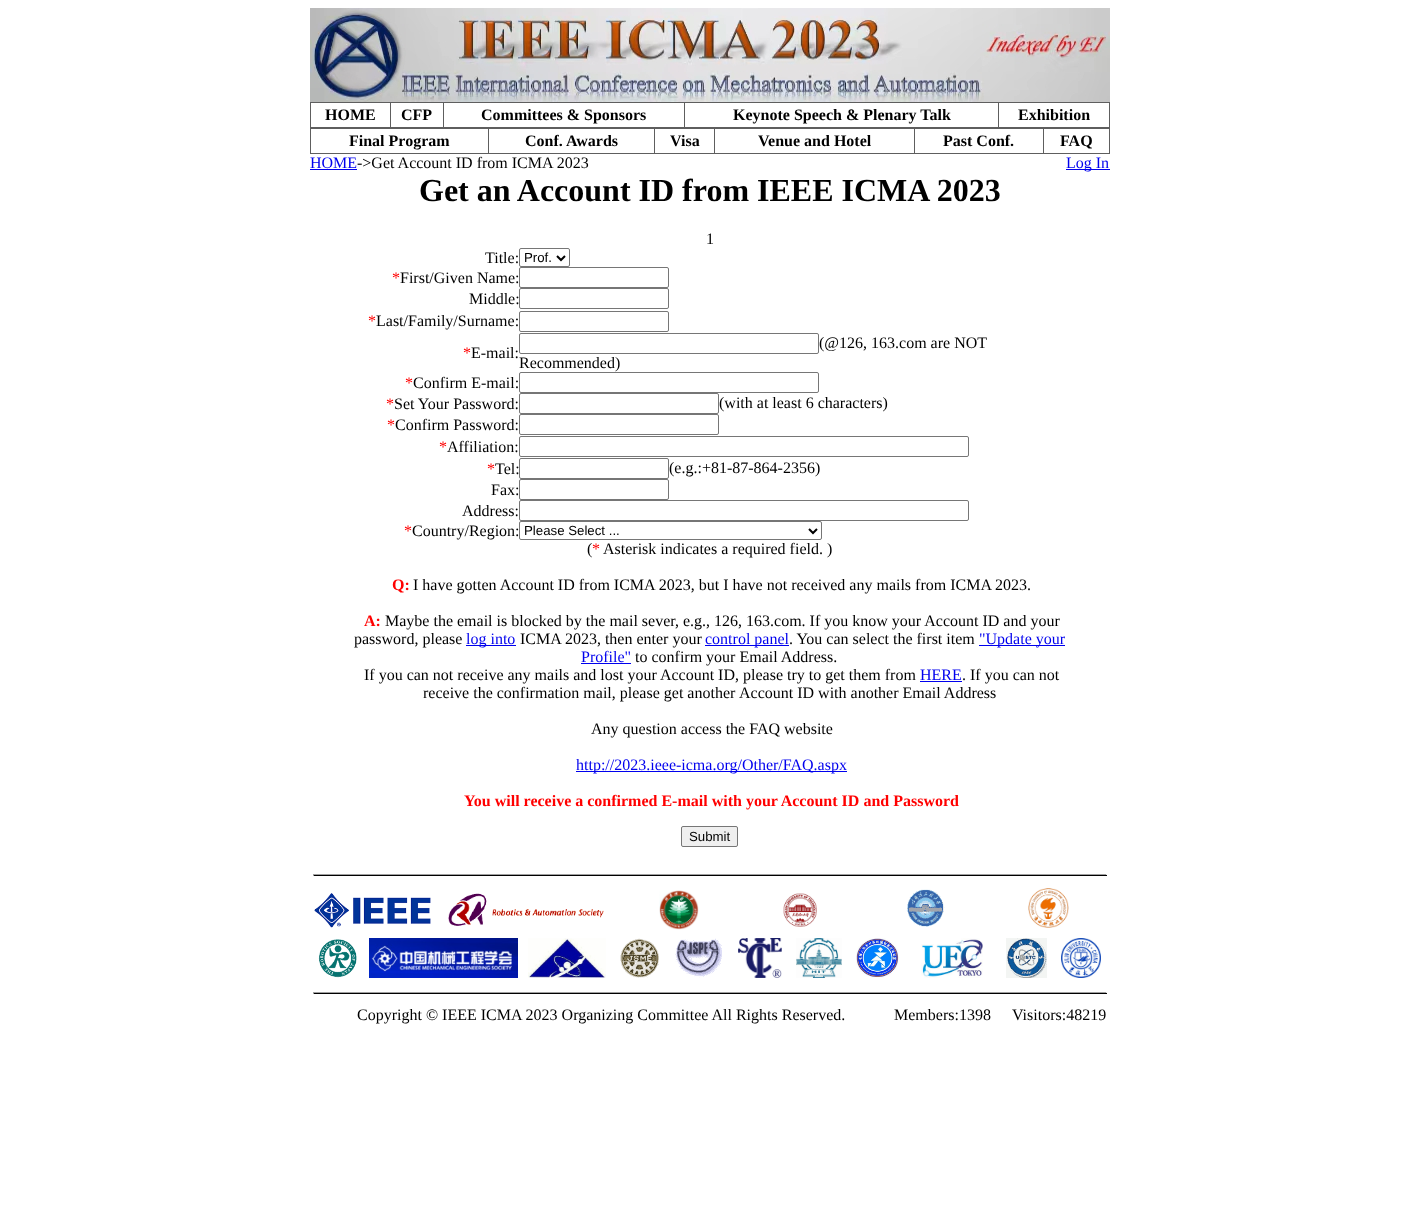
<svg xmlns="http://www.w3.org/2000/svg" width="1419" height="1221">
	<rect width="100%" height="100%" fill="#FFFFFF" />
	<image x="310" y="8" width="800" height="94" href="assets/img1.png" />
	<rect x="310" y="102" width="800" height="52" fill="#5E5E5E" />
	<rect x="311" y="103" width="79" height="24" fill="#FFFFFF" />
	<text x="325" y="120" font-family="Liberation Serif" font-size="16" font-weight="700" fill="#000000">HOME</text>
	<rect x="391" y="103" width="52" height="24" fill="#FFFFFF" />
	<text x="401" y="120" font-family="Liberation Serif" font-size="16" font-weight="700" fill="#000000">CFP</text>
	<rect x="444" y="103" width="240" height="24" fill="#FFFFFF" />
	<text x="481" y="120" font-family="Liberation Serif" font-size="16" font-weight="700" fill="#000000">Committees &amp; Sponsors</text>
	<rect x="685" y="103" width="313" height="24" fill="#FFFFFF" />
	<text x="733" y="120" font-family="Liberation Serif" font-size="16" font-weight="700" fill="#000000">Keynote Speech &amp; Plenary Talk</text>
	<rect x="999" y="103" width="110" height="24" fill="#FFFFFF" />
	<text x="1018" y="120" font-family="Liberation Serif" font-size="16" font-weight="700" fill="#000000">Exhibition</text>
	<rect x="311" y="129" width="177" height="24" fill="#FFFFFF" />
	<text x="349" y="146" font-family="Liberation Serif" font-size="16" font-weight="700" fill="#000000">Final Program</text>
	<rect x="489" y="129" width="165" height="24" fill="#FFFFFF" />
	<text x="525" y="146" font-family="Liberation Serif" font-size="16" font-weight="700" fill="#000000">Conf. Awards</text>
	<rect x="655" y="129" width="59" height="24" fill="#FFFFFF" />
	<text x="670" y="146" font-family="Liberation Serif" font-size="16" font-weight="700" fill="#000000">Visa</text>
	<rect x="715" y="129" width="199" height="24" fill="#FFFFFF" />
	<text x="758" y="146" font-family="Liberation Serif" font-size="16" font-weight="700" fill="#000000">Venue and Hotel</text>
	<rect x="915" y="129" width="128" height="24" fill="#FFFFFF" />
	<text x="943" y="146" font-family="Liberation Serif" font-size="16" font-weight="700" fill="#000000">Past Conf.</text>
	<rect x="1044" y="129" width="65" height="24" fill="#FFFFFF" />
	<text x="1060" y="146" font-family="Liberation Serif" font-size="16" font-weight="700" fill="#000000">FAQ</text>
	<text x="310" y="168" font-family="Liberation Serif" font-size="16" fill="#0000EE">HOME</text>
	<rect x="310" y="169" width="47" height="1" fill="#0000EE" />
	<text x="357" y="168" font-family="Liberation Serif" font-size="16" fill="#000000">-&gt;Get Account ID from ICMA 2023</text>
	<rect x="1066" y="169" width="44" height="1" fill="#0000EE" />
	<text x="1066" y="168" font-family="Liberation Serif" font-size="16" fill="#0000EE">Log In</text>
	<text x="419" y="201" font-family="Liberation Serif" font-size="32" font-weight="700" fill="#000000">Get an Account ID from IEEE ICMA 2023</text>
	<g font-family="Liberation Serif" font-size="16" fill="#000000">
		<text x="706" y="244">1</text>
		<text x="485" y="263">Title:</text>
	</g>
	<rect x="519.5" y="248.5" width="50" height="18" rx="1.5" fill="none" stroke="#767676" />
	<path d="M557 256L561 260L565 256" fill="none" stroke="#000000" stroke-width="2" />
	<text x="524" y="262" font-family="Liberation Sans" font-size="13.25" fill="#000000">Prof.</text>
	<text x="392" y="283" font-family="Liberation Serif" font-size="16" fill="#FF0000">*</text>
	<text x="400" y="283" font-family="Liberation Serif" font-size="16" fill="#000000">First/Given Name:</text>
	<rect x="519.5" y="267.5" width="149" height="20" rx="1.5" fill="none" stroke="#767676" />
	<text x="469" y="304" font-family="Liberation Serif" font-size="16" fill="#000000">Middle:</text>
	<rect x="519.5" y="288.5" width="149" height="20" rx="1.5" fill="none" stroke="#767676" />
	<text x="368" y="326" font-family="Liberation Serif" font-size="16" fill="#FF0000">*</text>
	<text x="376" y="326" font-family="Liberation Serif" font-size="16" fill="#000000">Last/Family/Surname:</text>
	<rect x="519.5" y="311.5" width="149" height="20" rx="1.5" fill="none" stroke="#767676" />
	<text x="463" y="358" font-family="Liberation Serif" font-size="16" fill="#FF0000">*</text>
	<text x="471" y="358" font-family="Liberation Serif" font-size="16" fill="#000000">E-mail:</text>
	<rect x="519.5" y="333.5" width="299" height="20" rx="1.5" fill="none" stroke="#767676" />
	<g font-family="Liberation Serif" font-size="16" fill="#000000">
		<text x="819" y="348">(@126, 163.com are NOT</text>
		<text x="519" y="368">Recommended)</text>
	</g>
	<text x="405" y="388" font-family="Liberation Serif" font-size="16" fill="#FF0000">*</text>
	<text x="413" y="388" font-family="Liberation Serif" font-size="16" fill="#000000">Confirm E-mail:</text>
	<rect x="519.5" y="372.5" width="299" height="20" rx="1.5" fill="none" stroke="#767676" />
	<text x="386" y="409" font-family="Liberation Serif" font-size="16" fill="#FF0000">*</text>
	<text x="394" y="409" font-family="Liberation Serif" font-size="16" fill="#000000">Set Your Password:</text>
	<rect x="519.5" y="393.5" width="199" height="20" rx="1.5" fill="none" stroke="#767676" />
	<text x="719" y="408" font-family="Liberation Serif" font-size="16" fill="#000000">(with at least 6 characters)</text>
	<text x="387" y="430" font-family="Liberation Serif" font-size="16" fill="#FF0000">*</text>
	<text x="395" y="430" font-family="Liberation Serif" font-size="16" fill="#000000">Confirm Password:</text>
	<rect x="519.5" y="414.5" width="199" height="20" rx="1.5" fill="none" stroke="#767676" />
	<text x="439" y="452" font-family="Liberation Serif" font-size="16" fill="#FF0000">*</text>
	<text x="447" y="452" font-family="Liberation Serif" font-size="16" fill="#000000">Affiliation:</text>
	<rect x="519.5" y="436.5" width="449" height="20" rx="1.5" fill="none" stroke="#767676" />
	<text x="487" y="474" font-family="Liberation Serif" font-size="16" fill="#FF0000">*</text>
	<text x="495" y="474" font-family="Liberation Serif" font-size="16" fill="#000000">Tel:</text>
	<rect x="519.5" y="458.5" width="149" height="20" rx="1.5" fill="none" stroke="#767676" />
	<g font-family="Liberation Serif" font-size="16" fill="#000000">
		<text x="669" y="473">(e.g.:+81-87-864-2356)</text>
		<text x="491" y="495">Fax:</text>
	</g>
	<rect x="519.5" y="479.5" width="149" height="20" rx="1.5" fill="none" stroke="#767676" />
	<text x="462" y="516" font-family="Liberation Serif" font-size="16" fill="#000000">Address:</text>
	<rect x="519.5" y="500.5" width="449" height="20" rx="1.5" fill="none" stroke="#767676" />
	<text x="404" y="536" font-family="Liberation Serif" font-size="16" fill="#FF0000">*</text>
	<text x="412" y="536" font-family="Liberation Serif" font-size="16" fill="#000000">Country/Region:</text>
	<rect x="519.5" y="521.5" width="302" height="18" rx="1.5" fill="none" stroke="#767676" />
	<path d="M809 529L813 533L817 529" fill="none" stroke="#000000" stroke-width="2" />
	<text x="524" y="535" font-family="Liberation Sans" font-size="13.25" fill="#000000">Please Select ...</text>
	<text x="587" y="554" font-family="Liberation Serif" font-size="16" fill="#000000">(</text>
	<text x="592" y="554" font-family="Liberation Serif" font-size="16" fill="#FF0000">*</text>
	<text x="603" y="554" font-family="Liberation Serif" font-size="16" fill="#000000">Asterisk indicates a required field. )</text>
	<text x="392" y="590" font-family="Liberation Serif" font-size="16" font-weight="700" fill="#FF0000">Q:</text>
	<text x="413" y="590" font-family="Liberation Serif" font-size="16" fill="#000000">I have gotten Account ID from ICMA 2023, but I have not received any mails from ICMA 2023.</text>
	<text x="364" y="626" font-family="Liberation Serif" font-size="16" font-weight="700" fill="#FF0000">A:</text>
	<g font-family="Liberation Serif" font-size="16" fill="#000000">
		<text x="385" y="626">Maybe the email is blocked by the mail sever, e.g., 126, 163.com. If you know your Account ID and your</text>
		<text x="354" y="644">password, please</text>
	</g>
	<rect x="466" y="645" width="50" height="1" fill="#0000EE" />
	<text x="466" y="644" font-family="Liberation Serif" font-size="16" fill="#0000EE">log into</text>
	<text x="520" y="644" font-family="Liberation Serif" font-size="16" fill="#000000">ICMA 2023, then enter your</text>
	<rect x="705" y="645" width="84" height="1" fill="#0000EE" />
	<text x="705" y="644" font-family="Liberation Serif" font-size="16" fill="#0000EE">control panel</text>
	<text x="789" y="644" font-family="Liberation Serif" font-size="16" fill="#000000">. You can select the first item</text>
	<rect x="979" y="645" width="86" height="1" fill="#0000EE" />
	<g font-family="Liberation Serif" font-size="16" fill="#0000EE">
		<text x="979" y="644">"Update your</text>
		<text x="581" y="662">Profile"</text>
	</g>
	<rect x="581" y="663" width="50" height="1" fill="#0000EE" />
	<g font-family="Liberation Serif" font-size="16" fill="#000000">
		<text x="635" y="662">to confirm your Email Address.</text>
		<text x="364" y="680">If you can not receive any mails and lost your Account ID, please try to get them from</text>
	</g>
	<text x="920" y="680" font-family="Liberation Serif" font-size="16" fill="#0000EE">HERE</text>
	<rect x="920" y="681" width="42" height="1" fill="#0000EE" />
	<g font-family="Liberation Serif" font-size="16" fill="#000000">
		<text x="962" y="680">. If you can not</text>
		<text x="423" y="698">receive the confirmation mail, please get another</text>
		<text x="739" y="698">Account ID with another Email Address</text>
		<text x="591" y="734">Any question access the FAQ website</text>
	</g>
	<rect x="576" y="771" width="271" height="1" fill="#0000EE" />
	<text x="576" y="770" font-family="Liberation Serif" font-size="16" fill="#0000EE">http://2023.ieee-icma.org/Other/FAQ.aspx</text>
	<text x="464" y="806" font-family="Liberation Serif" font-size="16" font-weight="700" fill="#FF0000">You will receive a confirmed E-mail with your Account ID and Password</text>
	<rect x="681.5" y="826.5" width="56" height="20" rx="1.5" fill="#EFEFEF" stroke="#767676" />
	<text x="689" y="841" font-family="Liberation Sans" font-size="13.25" fill="#000000">Submit</text>
	<rect x="313" y="874" width="794" height="1" fill="#9F9F9F" />
	<rect x="1106" y="874" width="1" height="2" fill="#EEEEEE" />
	<rect x="313" y="875" width="794" height="1" fill="#000000" />
	<rect x="313" y="874" width="1" height="2" fill="#9F9F9F" />
	<image x="314" y="893" width="117" height="35" href="assets/img2.png" />
	<image x="448" y="893" width="156" height="33" href="assets/img3.png" />
	<image x="659" y="890" width="40" height="40" href="assets/img4.png" />
	<image x="783" y="893" width="34" height="34" href="assets/img5.png" />
	<image x="906" y="889" width="39" height="38" href="assets/img6.png" />
	<image x="1028" y="888" width="41" height="40" href="assets/img7.png" />
	<image x="318" y="939" width="39" height="39" href="assets/img8.png" />
	<image x="369" y="938" width="149" height="40" href="assets/img9.png" />
	<image x="528" y="938" width="78" height="40" href="assets/img10.png" />
	<image x="620" y="938" width="39" height="40" href="assets/img11.png" />
	<image x="675" y="938" width="47" height="40" href="assets/img12.png" />
	<image x="738" y="938" width="44" height="40" href="assets/img13.png" />
	<image x="796" y="938" width="46" height="40" href="assets/img14.png" />
	<image x="856" y="938" width="43" height="40" href="assets/img15.png" />
	<image x="921" y="938" width="62" height="40" href="assets/img16.png" />
	<image x="1006" y="938" width="41" height="40" href="assets/img17.png" />
	<image x="1061" y="938" width="40" height="40" href="assets/img18.png" />
	<rect x="313" y="992" width="794" height="1" fill="#9F9F9F" />
	<rect x="1106" y="992" width="1" height="2" fill="#EEEEEE" />
	<rect x="313" y="993" width="794" height="1" fill="#000000" />
	<rect x="313" y="992" width="1" height="2" fill="#9F9F9F" />
	<g font-family="Liberation Serif" font-size="16" fill="#000000">
		<text x="357" y="1020">Copyright © IEEE ICMA 2023 Organizing Committee All Rights Reserved.</text>
		<text x="894" y="1020">Members:1398</text>
		<text x="1012" y="1020">Visitors:48219</text>
	</g>
</svg>
